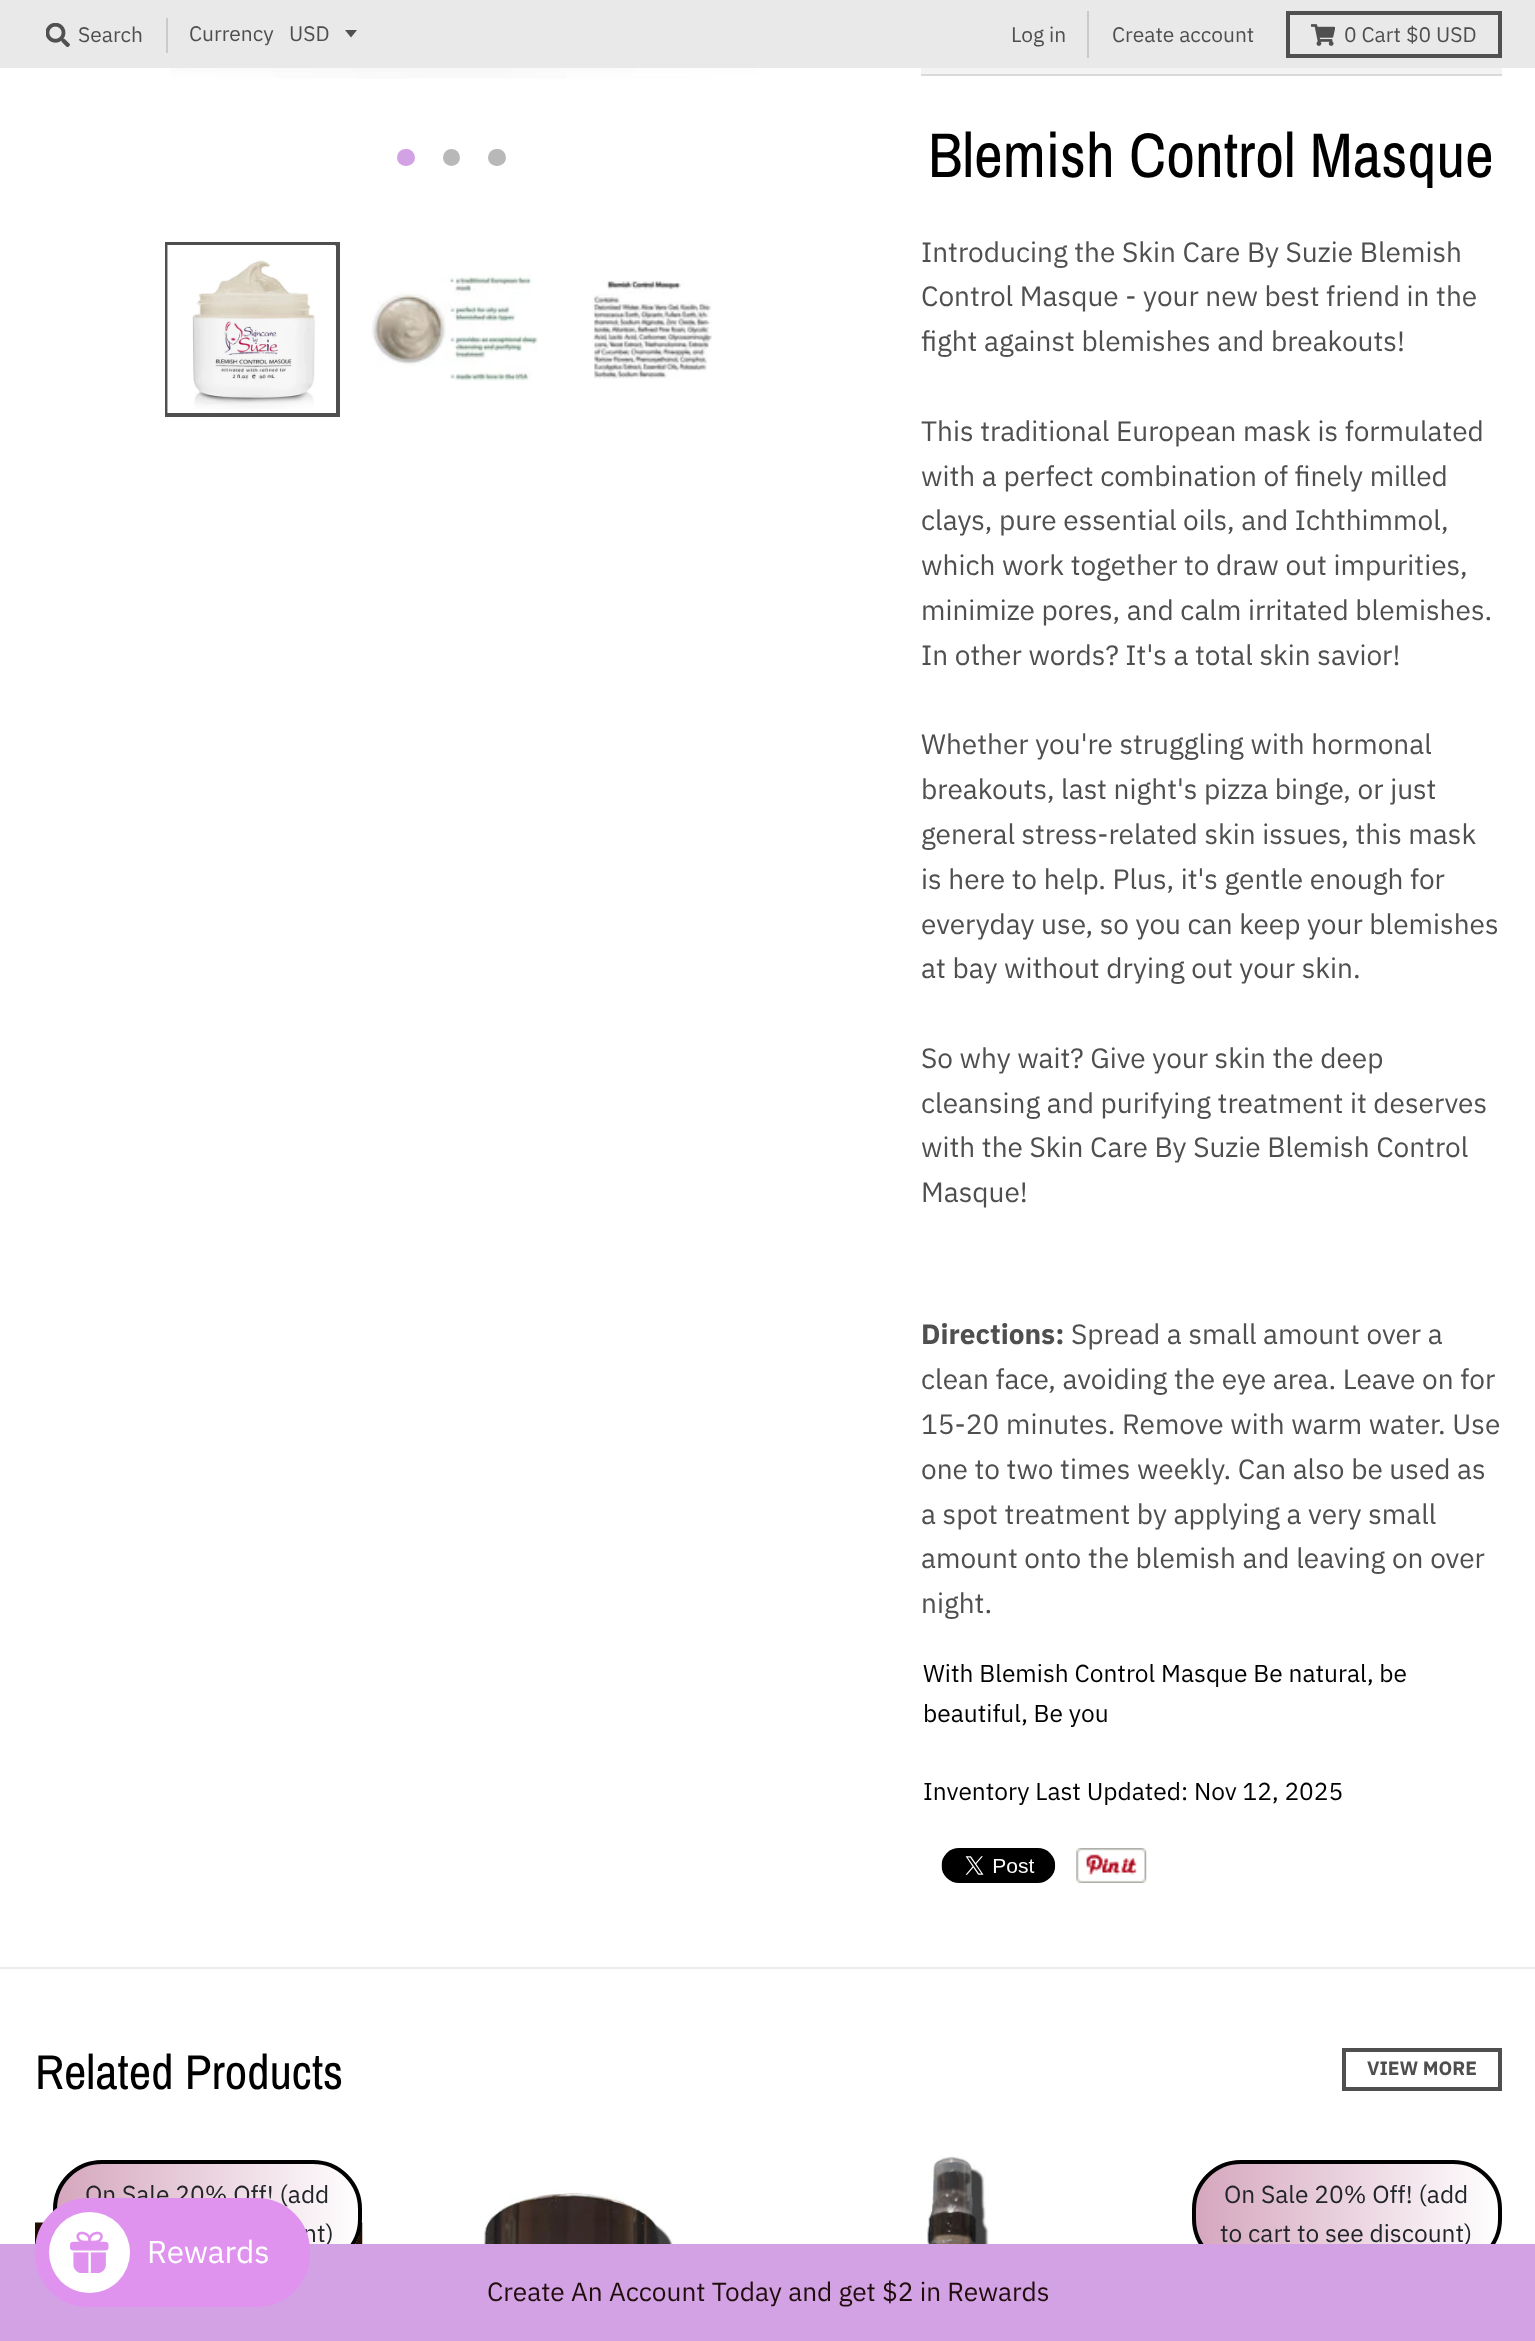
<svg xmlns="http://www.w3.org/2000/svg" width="1535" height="2341">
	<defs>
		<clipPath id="clip1"><rect x="53" y="2160" width="309" height="108" rx="49" /></clipPath>
		<linearGradient id="g1" gradientUnits="userSpaceOnUse" x1="56" y1="2214" x2="359" y2="2214"><stop offset="0" stop-color="#D5A6BD" /><stop offset="1" stop-color="#FFFFFF" /></linearGradient>
		<clipPath id="clip2"><rect x="1192" y="2160" width="310" height="108" rx="49" /></clipPath>
		<linearGradient id="g2" gradientUnits="userSpaceOnUse" x1="1195" y1="2214" x2="1498" y2="2214"><stop offset="0" stop-color="#D5A6BD" /><stop offset="1" stop-color="#FFFFFF" /></linearGradient>
	</defs>
	<rect width="100%" height="100%" fill="#FFFFFF" />
	<rect x="0" y="0" width="1535" height="68" fill="#E9E9E9" />
	<image x="46" y="23" width="24" height="24" href="assets/img1.png" />
	<text x="78" y="42" font-family="IBM Plex Sans" font-size="21" fill="#4F4F4F">Search</text>
	<rect x="166" y="18" width="2" height="35" fill="#CACACA" />
	<text x="189" y="41" font-family="IBM Plex Sans" font-size="21" fill="#4F4F4F">Currency</text>
	<path d="M345 30L351 37.5L357 30Z" fill="#505050" />
	<text x="289" y="41" font-family="IBM Plex Sans" font-size="21" fill="#4F4F4F">USD</text>
	<rect x="1087" y="11" width="2" height="47" fill="#CACACA" />
	<g font-family="IBM Plex Sans" font-size="21" fill="#4F4F4F">
		<text x="1011" y="42">Log in</text>
		<text x="1112" y="42">Create account</text>
	</g>
	<rect x="1288" y="13" width="212" height="43" fill="none" stroke="#505050" stroke-width="4" />
	<image x="1311" y="24" width="24" height="22" href="assets/img2.png" />
	<text x="1344" y="42" font-family="IBM Plex Sans" font-size="21" fill="#4F4F4F">0 Cart $0 USD</text>
	<rect x="0" y="1967" width="1535" height="2" fill="#EDEDED" />
	<image x="169" y="68" width="589" height="11" href="assets/img3.png" />
	<rect x="397" y="149" width="18" height="17" rx="8.5" fill="#D2A2E5" />
	<circle cx="451.5" cy="157.5" r="8.5" fill="#B8B8B8" />
	<rect x="488" y="149" width="18" height="17" rx="8.5" fill="#B8B8B8" />
	<rect x="167" y="244" width="171" height="171" fill="none" stroke="#4F4F4F" stroke-width="4" />
	<image x="167" y="245" width="169" height="168" href="assets/img4.png" />
	<image x="371" y="275" width="167" height="106" href="assets/img5.png" />
	<image x="592" y="280" width="120" height="99" href="assets/img6.png" />
	<rect x="921" y="68" width="581" height="6" fill="#F3F3F3" />
	<rect x="921" y="74" width="581" height="2" fill="#DADADA" />
	<text x="928" y="177" font-family="Archivo Narrow" font-size="63" fill="#000000">Blemish Control Masque</text>
	<g font-family="IBM Plex Sans" font-size="28" fill="#4F4F4F">
		<text x="921" y="262">Introducing the Skin Care By Suzie Blemish</text>
		<text x="921" y="306">Control Masque - your new best friend in the</text>
		<text x="921" y="351">fight against blemishes and breakouts!</text>
		<text x="921" y="441">This traditional European mask is formulated</text>
		<text x="921" y="486">with a perfect combination of finely milled</text>
		<text x="921" y="530">clays, pure essential oils, and Ichthimmol,</text>
		<text x="921" y="575">which work together to draw out impurities,</text>
		<text x="921" y="620">minimize pores, and calm irritated blemishes.</text>
		<text x="921" y="665">In other words? It's a total skin savior!</text>
		<text x="921" y="754">Whether you're struggling with hormonal</text>
		<text x="921" y="799">breakouts, last night's pizza binge, or just</text>
		<text x="921" y="844">general stress-related skin issues, this mask</text>
		<text x="921" y="889">is here to help. Plus, it's gentle enough for</text>
		<text x="921" y="934">everyday use, so you can keep your blemishes</text>
		<text x="921" y="978">at bay without drying out your skin.</text>
		<text x="921" y="1068">So why wait? Give your skin the deep</text>
		<text x="921" y="1113">cleansing and purifying treatment it deserves</text>
		<text x="921" y="1157">with the Skin Care By Suzie Blemish Control</text>
		<text x="921" y="1202">Masque!</text>
	</g>
	<text x="921" y="1344" font-family="IBM Plex Sans" font-size="28" font-weight="700" fill="#4F4F4F">Directions:</text>
	<g font-family="IBM Plex Sans" font-size="28" fill="#4F4F4F">
		<text x="1071" y="1344">Spread a small amount over a</text>
		<text x="921" y="1389">clean face, avoiding the eye area. Leave on for</text>
		<text x="921" y="1434">15-20 minutes. Remove with warm water. Use</text>
		<text x="921" y="1479">one to two times weekly. Can also be used as</text>
		<text x="921" y="1524">a spot treatment by applying a very small</text>
		<text x="921" y="1568">amount onto the blemish and leaving on over</text>
		<text x="921" y="1613">night.</text>
	</g>
	<g font-family="IBM Plex Sans" font-size="24.5" fill="#000000">
		<text x="923" y="1682">With Blemish Control Masque Be natural, be</text>
		<text x="923" y="1722">beautiful, Be you</text>
		<text x="923" y="1800">Inventory Last Updated: Nov 12, 2025</text>
	</g>
	<image x="941" y="1848" width="115" height="35" href="assets/img7.png" />
	<image x="1076" y="1848" width="71" height="35" href="assets/img8.png" />
	<text x="35" y="2089" font-family="Archivo Narrow" font-size="49" fill="#000000">Related Products</text>
	<rect x="1344" y="2050" width="156" height="39" fill="none" stroke="#4F4F4F" stroke-width="4" />
	<text x="1367" y="2075" font-family="IBM Plex Sans" font-size="19.25" font-weight="700" fill="#4F4F4F">VIEW MORE</text>
	<image x="35" y="2222" width="328" height="22" href="assets/img9.png" />
	<g clip-path="url(#clip1)">
		<rect x="56" y="2160" width="303" height="84" fill="url(#g1)" />
	</g>
	<rect x="55" y="2162" width="305" height="104" rx="47" fill="none" stroke="#000000" stroke-width="4" />
	<g font-family="IBM Plex Sans" font-size="24.5" fill="#212529">
		<text x="85" y="2203">On Sale 20% Off! (add</text>
		<text x="303" y="2242">nt)</text>
	</g>
	<image x="483" y="2191" width="192" height="53" href="assets/img10.png" />
	<image x="906" y="2156" width="102" height="88" href="assets/img11.png" />
	<g clip-path="url(#clip2)">
		<rect x="1195" y="2160" width="303" height="84" fill="url(#g2)" />
	</g>
	<rect x="1194" y="2162" width="306" height="104" rx="47" fill="none" stroke="#000000" stroke-width="4" />
	<g font-family="IBM Plex Sans" font-size="24.5" fill="#212529">
		<text x="1224" y="2203">On Sale 20% Off! (add</text>
		<text x="1220" y="2242">to cart to see discount)</text>
	</g>
	<rect x="0" y="2244" width="1535" height="97" fill="#D2A2E5" />
	<text x="487" y="2301" font-family="IBM Plex Sans" font-size="26.25" fill="#210C0C">Create An Account Today and get $2 in Rewards</text>
	<rect x="36" y="2199" width="273" height="107" rx="52" fill="#DF93EF" stroke="#DF93EF" stroke-width="2" />
	<circle cx="89.5" cy="2252.5" r="40.5" fill="#FFFFFF" />
	<image x="70" y="2231" width="39" height="42" href="assets/img12.png" />
	<text x="147" y="2263" font-family="IBM Plex Sans" font-size="31.5" fill="#FFFFFF">Rewards</text>
</svg>
